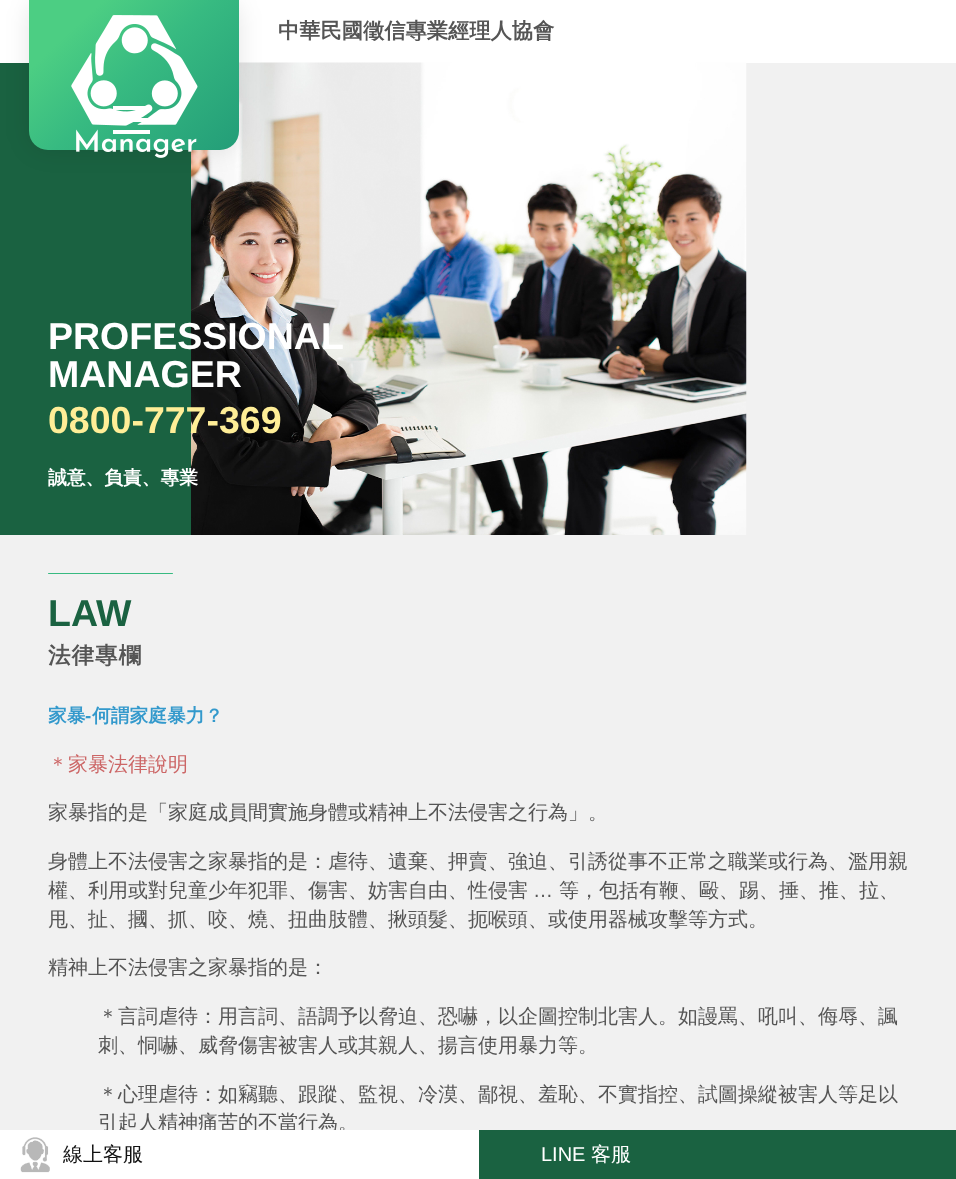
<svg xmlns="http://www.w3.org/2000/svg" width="956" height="1179">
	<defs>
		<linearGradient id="g1" gradientUnits="userSpaceOnUse" x1="48" y1="-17" x2="220" y2="167"><stop offset="0.2" stop-color="#4CCE83" /><stop offset="0.5" stop-color="#37BA81" /><stop offset="1" stop-color="#239D78" /></linearGradient>
	</defs>
	<rect width="100%" height="100%" fill="#F1F1F1" />
	<rect x="0" y="0" width="956" height="63" fill="#FFFFFF" />
	<image x="191" y="62" width="556" height="473" href="assets/img2.png" />
	<rect x="0" y="63" width="191" height="472" fill="#1A6241" />
	<rect x="29" y="0" width="210" height="150" rx="19" fill="#000000" fill-opacity="0.1" filter="blur(12.5px)" />
	<path d="M29 0H239V131C239 141.5 230.5 150 220 150H48C37.5 150 29 141.5 29 131Z" fill="url(#g1)" />
	<image x="71" y="15" width="127" height="143" href="assets/img1.png" />
	<rect x="113" y="106" width="37" height="4" fill="#FFFFFF" />
	<rect x="133" y="118" width="17" height="4" fill="#FFFFFF" />
	<rect x="113" y="130" width="37" height="4" fill="#FFFFFF" />
	<text x="278" y="38" font-family="WenQuanYi Zen Hei" font-size="21.25" font-weight="700" fill="#555555">中華民國徵信專業經理人協會</text>
	<g font-family="Liberation Sans" font-size="37.5" font-weight="700" fill="#FFFFFF">
		<text x="48" y="349">PROFESSIONAL</text>
		<text x="48" y="387">MANAGER</text>
	</g>
	<text x="48" y="433" font-family="Liberation Sans" font-size="37.5" font-weight="700" fill="#FFEE97">0800-777-369</text>
	<text x="48" y="484" font-family="WenQuanYi Zen Hei" font-size="18.75" font-weight="700" fill="#FFFFFF">誠意、負責、專業</text>
	<rect x="48" y="573" width="125" height="1" rx="0.5" fill="#37BA81" />
	<text x="48" y="626" font-family="Liberation Sans" font-size="37.5" font-weight="700" fill="#1A6241">LAW</text>
	<text x="48" y="663" font-family="WenQuanYi Zen Hei" font-size="22.5" font-weight="700" letter-spacing="1" fill="#555555">法律專欄</text>
	<text x="48" y="722" font-family="WenQuanYi Zen Hei" font-size="18.75" font-weight="700" fill="#3399CC">家暴</text>
	<text x="85" y="722" font-family="Liberation Sans" font-size="18.75" font-weight="700" fill="#3399CC">-</text>
	<text x="92" y="722" font-family="WenQuanYi Zen Hei" font-size="18.75" font-weight="700" fill="#3399CC">何謂家庭暴力？</text>
	<text x="48" y="771" font-family="WenQuanYi Zen Hei" font-size="20" font-weight="500" fill="#CC6666">＊家暴法律說明</text>
	<g font-family="WenQuanYi Zen Hei" font-size="20" font-weight="500" fill="#555555">
		<text x="48" y="819">家暴指的是「家庭成員間實施身體或精神上不法侵害之行為」。</text>
		<text x="48" y="868">身體上不法侵害之家暴指的是：虐待、遺棄、押賣、強迫、引誘從事不正常之職業或行為、濫用親</text>
		<text x="48" y="897">權、利用或對兒童少年犯罪、傷害、妨害自由、性侵害</text>
	</g>
	<text x="533" y="897" font-family="Liberation Sans" font-size="20" fill="#555555">…</text>
	<g font-family="WenQuanYi Zen Hei" font-size="20" font-weight="500" fill="#555555">
		<text x="559" y="897">等，包括有鞭、毆、踢、捶、推、拉、</text>
		<text x="48" y="926">甩、扯、摑、抓、咬、燒、扭曲肢體、揪頭髮、扼喉頭、或使用器械攻擊等方式。</text>
		<text x="48" y="974">精神上不法侵害之家暴指的是：</text>
		<text x="98" y="1023">＊言詞虐待：用言詞、語調予以脅迫、恐嚇，以企圖控制北害人。如謾罵、吼叫、侮辱、諷</text>
		<text x="98" y="1052">刺、恫嚇、威脅傷害被害人或其親人、揚言使用暴力等。</text>
		<text x="98" y="1101">＊心理虐待：如竊聽、跟蹤、監視、冷漠、鄙視、羞恥、不實指控、試圖操縱被害人等足以</text>
		<text x="98" y="1129">引起人精神痛苦的不當行為。</text>
	</g>
	<rect x="0" y="1130" width="479" height="49" fill="#FFFFFF" />
	<image x="20" y="1137" width="30" height="36" href="assets/img3.png" />
	<text x="63" y="1161" font-family="WenQuanYi Zen Hei" font-size="20" font-weight="500" fill="#111111">線上客服</text>
	<rect x="479" y="1130" width="477" height="49" fill="#1A6241" />
	<text x="541" y="1161" font-family="Liberation Sans" font-size="20" fill="#FFFFFF">LINE</text>
	<text x="591" y="1161" font-family="WenQuanYi Zen Hei" font-size="20" font-weight="500" fill="#FFFFFF">客服</text>
</svg>
